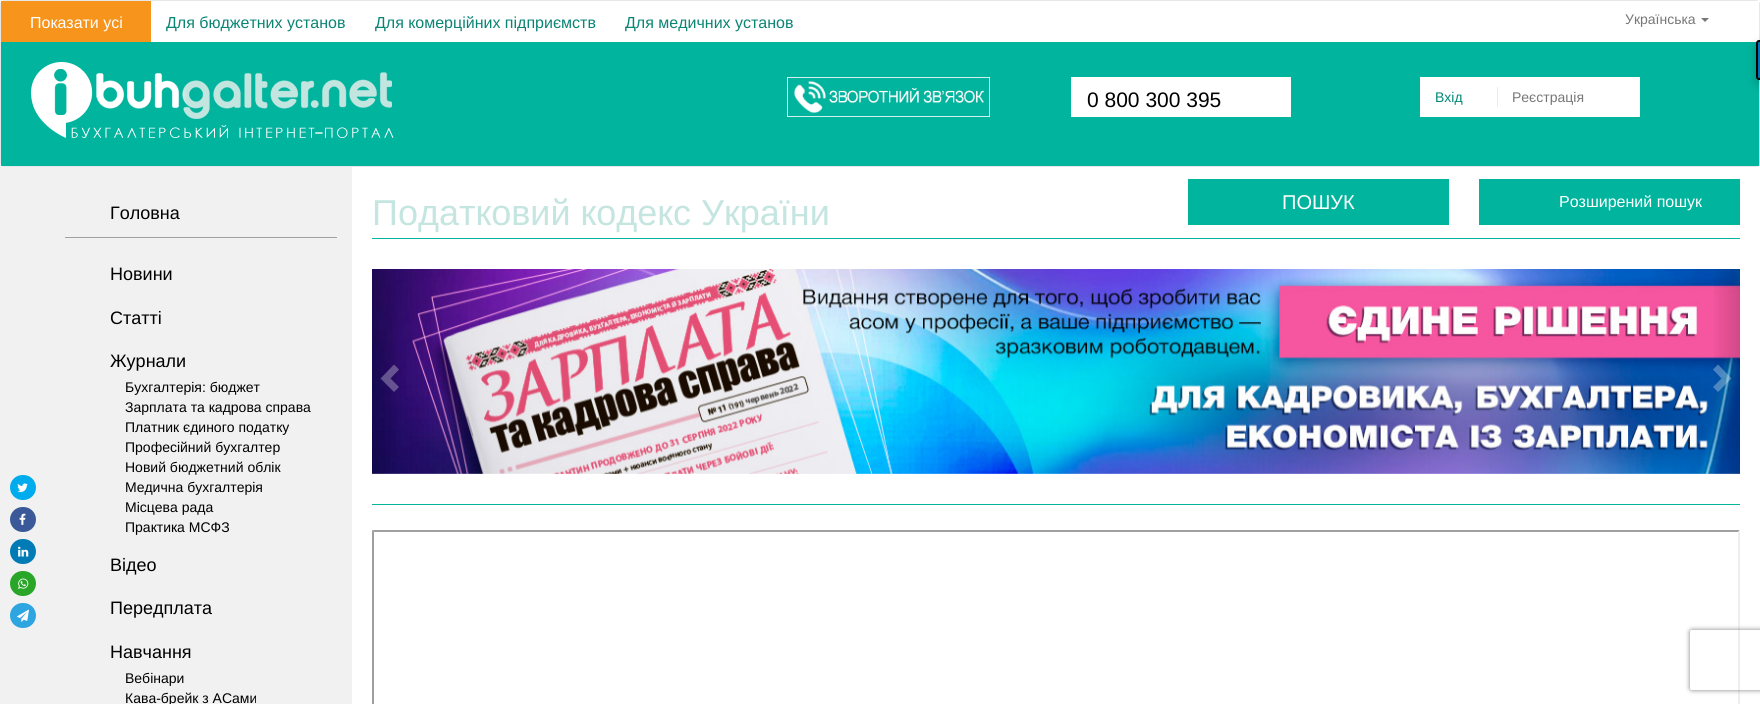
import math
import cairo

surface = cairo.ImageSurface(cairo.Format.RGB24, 1760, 704)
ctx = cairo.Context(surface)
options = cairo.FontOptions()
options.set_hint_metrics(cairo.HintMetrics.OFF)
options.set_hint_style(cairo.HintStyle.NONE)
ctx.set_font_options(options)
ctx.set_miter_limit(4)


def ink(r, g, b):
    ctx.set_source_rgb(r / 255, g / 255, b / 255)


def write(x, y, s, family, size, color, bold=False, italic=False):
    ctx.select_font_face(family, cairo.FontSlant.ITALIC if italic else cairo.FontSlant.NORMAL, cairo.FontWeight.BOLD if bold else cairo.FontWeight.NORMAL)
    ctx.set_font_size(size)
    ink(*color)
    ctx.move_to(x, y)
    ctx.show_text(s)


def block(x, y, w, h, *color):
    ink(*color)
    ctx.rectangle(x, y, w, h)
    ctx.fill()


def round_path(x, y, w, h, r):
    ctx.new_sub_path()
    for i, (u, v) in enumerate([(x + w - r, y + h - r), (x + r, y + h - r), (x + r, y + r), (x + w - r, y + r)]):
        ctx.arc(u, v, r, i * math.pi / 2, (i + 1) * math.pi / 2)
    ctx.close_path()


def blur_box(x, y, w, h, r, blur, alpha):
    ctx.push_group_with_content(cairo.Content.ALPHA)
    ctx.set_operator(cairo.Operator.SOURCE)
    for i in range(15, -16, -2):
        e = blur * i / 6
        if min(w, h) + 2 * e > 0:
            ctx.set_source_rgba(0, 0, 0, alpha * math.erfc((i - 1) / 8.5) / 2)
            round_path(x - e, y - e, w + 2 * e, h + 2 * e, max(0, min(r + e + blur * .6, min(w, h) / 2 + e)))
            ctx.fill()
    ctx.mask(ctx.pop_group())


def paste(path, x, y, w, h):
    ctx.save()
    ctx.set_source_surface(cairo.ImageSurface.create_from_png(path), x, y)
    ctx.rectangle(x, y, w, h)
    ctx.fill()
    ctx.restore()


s1 = dict(family="Liberation Sans", size=16, color=(255, 255, 255))
s2 = dict(family="Liberation Sans", size=16, color=(10, 132, 117))
s3 = dict(family="Liberation Sans", size=14, color=(119, 119, 119))
s4 = dict(family="Liberation Sans", size=21, color=(0, 0, 0))
s5 = dict(family="Liberation Sans", size=14, color=(0, 136, 119))
s6 = dict(family="Liberation Sans", size=18, color=(0, 0, 0))
s7 = dict(family="Liberation Sans", size=14, color=(0, 0, 0))
s8 = dict(family="Liberation Sans", size=36, color=(196, 229, 224))
s9 = dict(family="Liberation Sans", size=20, color=(255, 255, 255))

ink(255, 255, 255)
ctx.paint()
round_path(0.5, 0.5, 1759, 166, 3.5)
ink(231, 231, 231)
ctx.set_line_width(1)
ctx.stroke()
block(1757, 1, 2, 2, 255, 255, 255)
block(1, 1, 150, 41, 247, 148, 28)
write(30, 28, "Показати усi", **s1)
write(166, 28, "Для бюджетних установ", **s2)
write(375, 28, "Для комерційних підприємств", **s2)
write(625, 28, "Для медичних установ", **s2)
write(1625, 24, "Українська", **s3)
ctx.new_path()
ctx.move_to(1701, 18)
ctx.line_to(1709, 18)
ctx.line_to(1705, 22)
ctx.close_path()
ctx.fill()
block(1, 42, 1758, 124, 1, 180, 158)
paste("pic1.png", 31, 62, 363, 76)
paste("pic2.png", 787, 77, 203, 40)
block(1071, 77, 220, 40, 255, 255, 255)
write(1087, 107, "0 800 300 395", **s4)
block(1420, 77, 220, 40, 255, 255, 255)
write(1435, 102, "Вхід", **s5)
block(1497, 87, 1, 20, 235, 236, 237)
write(1512, 102, "Реєстрація", **s3)
block(0, 167, 352, 537, 241, 241, 241)
write(110, 219, "Головна", **s6)
block(65, 237, 272, 1, 161, 161, 161)
write(110, 280, "Новини", **s6)
write(110, 324, "Статті", **s6)
write(110, 367, "Журнали", **s6)
write(125, 392, "Бухгалтерія: бюджет", **s7)
write(125, 412, "Зарплата та кадрова справа", **s7)
write(125, 432, "Платник єдиного податку", **s7)
write(125, 452, "Професійний бухгалтер", **s7)
write(125, 472, "Новий бюджетний облік", **s7)
write(125, 492, "Медична бухгалтерія", **s7)
write(125, 512, "Місцева рада", **s7)
write(125, 532, "Практика МСФЗ", **s7)
write(110, 571, "Відео", **s6)
write(110, 614, "Передплата", **s6)
write(110, 658, "Навчання", **s6)
write(125, 683, "Вебінари", **s7)
write(125, 703, "Кава-брейк з АСами", **s7)
write(372, 225, "Податковий кодекс України", **s8)
block(1188, 179, 261, 46, 0, 180, 157)
write(1282, 209, "ПОШУК", **s9)
block(1479, 179, 261, 46, 0, 180, 157)
write(1559, 207, "Розширений пошук", **s1)
block(372, 238, 1368, 1, 1, 180, 158)
paste("pic3.png", 372, 269, 1368, 205)
gradient = cairo.LinearGradient(372, 372, 402, 372)
gradient.add_color_stop_rgba(0, 0, 0, 0, 0.15)
gradient.add_color_stop_rgba(1, 0, 0, 0, 0)
ctx.set_source(gradient)
ctx.rectangle(372, 269, 26, 205)
ctx.fill()
ctx.set_source_rgba(1, 1, 1, 0.3)
ctx.new_path()
ctx.move_to(399, 369.5)
ctx.line_to(390.5, 378.5)
ctx.line_to(399, 387)
ctx.line_to(394, 392)
ctx.line_to(380.5, 378.5)
ctx.line_to(394, 364.5)
ctx.close_path()
ctx.fill()
gradient = cairo.LinearGradient(1710, 372, 1740, 372)
gradient.add_color_stop_rgba(0, 0, 0, 0, 0)
gradient.add_color_stop_rgba(1, 0, 0, 0, 0.15)
ctx.set_source(gradient)
ctx.rectangle(1714, 269, 26, 205)
ctx.fill()
ctx.set_source_rgba(1, 1, 1, 0.3)
ctx.new_path()
ctx.move_to(1731.5, 378.5)
ctx.line_to(1718, 392)
ctx.line_to(1713, 387)
ctx.line_to(1721.5, 378.5)
ctx.line_to(1713, 369.5)
ctx.line_to(1718, 364.5)
ctx.close_path()
ctx.fill()
block(372, 504, 1368, 1, 1, 180, 158)
ink(159, 159, 159)
ctx.new_path()
ctx.move_to(372, 530)
ctx.line_to(1740, 530)
ctx.line_to(1738, 532)
ctx.line_to(374, 532)
ctx.close_path()
ctx.fill()
ctx.new_path()
ctx.move_to(372, 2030)
ctx.line_to(372, 530)
ctx.line_to(374, 532)
ctx.line_to(374, 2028)
ctx.close_path()
ctx.fill()
ink(238, 238, 238)
ctx.new_path()
ctx.move_to(1740, 530)
ctx.line_to(1740, 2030)
ctx.line_to(1738, 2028)
ctx.line_to(1738, 532)
ctx.close_path()
ctx.fill()
ink(0, 0, 0)
blur_box(1756, 44, 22, 40, 3, 5, 0.2)
ink(0, 115, 183)
ctx.new_path()
ctx.move_to(1759, 41)
ctx.line_to(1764, 41)
ctx.line_to(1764, 79)
ctx.line_to(1759, 79)
ctx.curve_to(1758, 79, 1757, 78, 1757, 77)
ctx.line_to(1757, 43)
ctx.curve_to(1757, 42, 1758, 41, 1759, 41)
ctx.close_path()
ctx.fill_preserve()
ink(0, 0, 0)
ctx.set_line_width(2)
ctx.stroke()
ink(0, 172, 237)
round_path(10, 475, 26, 25, 12.5)
ctx.fill()
paste("pic4.png", 17, 483, 11, 9)
ink(59, 89, 152)
round_path(10, 507, 26, 25, 12.5)
ctx.fill()
paste("pic5.png", 19, 513, 7, 12)
ink(0, 123, 182)
round_path(10, 539, 26, 25, 12.5)
ctx.fill()
paste("pic6.png", 18, 546, 11, 11)
ink(41, 166, 40)
round_path(10, 571, 26, 25, 12.5)
ctx.fill()
paste("pic7.png", 18, 578, 11, 11)
ink(44, 165, 224)
round_path(10, 603, 26, 25, 12.5)
ctx.fill()
paste("pic8.png", 17, 609, 12, 13)
ctx.save()
ctx.set_fill_rule(cairo.FillRule.EVEN_ODD)
ctx.new_path()
ctx.move_to(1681, 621)
ctx.line_to(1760, 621)
ctx.line_to(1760, 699)
ctx.line_to(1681, 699)
ctx.close_path()
ctx.move_to(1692, 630)
ctx.line_to(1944, 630)
ctx.curve_to(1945, 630, 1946, 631, 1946, 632)
ctx.line_to(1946, 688)
ctx.curve_to(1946, 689, 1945, 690, 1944, 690)
ctx.line_to(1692, 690)
ctx.curve_to(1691, 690, 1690, 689, 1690, 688)
ctx.line_to(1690, 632)
ctx.curve_to(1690, 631, 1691, 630, 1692, 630)
ctx.close_path()
ctx.clip()
ink(128, 128, 128)
blur_box(1690, 630, 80, 60, 2, 2.5, 1)
ctx.restore()
surface.write_to_png("screenshot.png")
